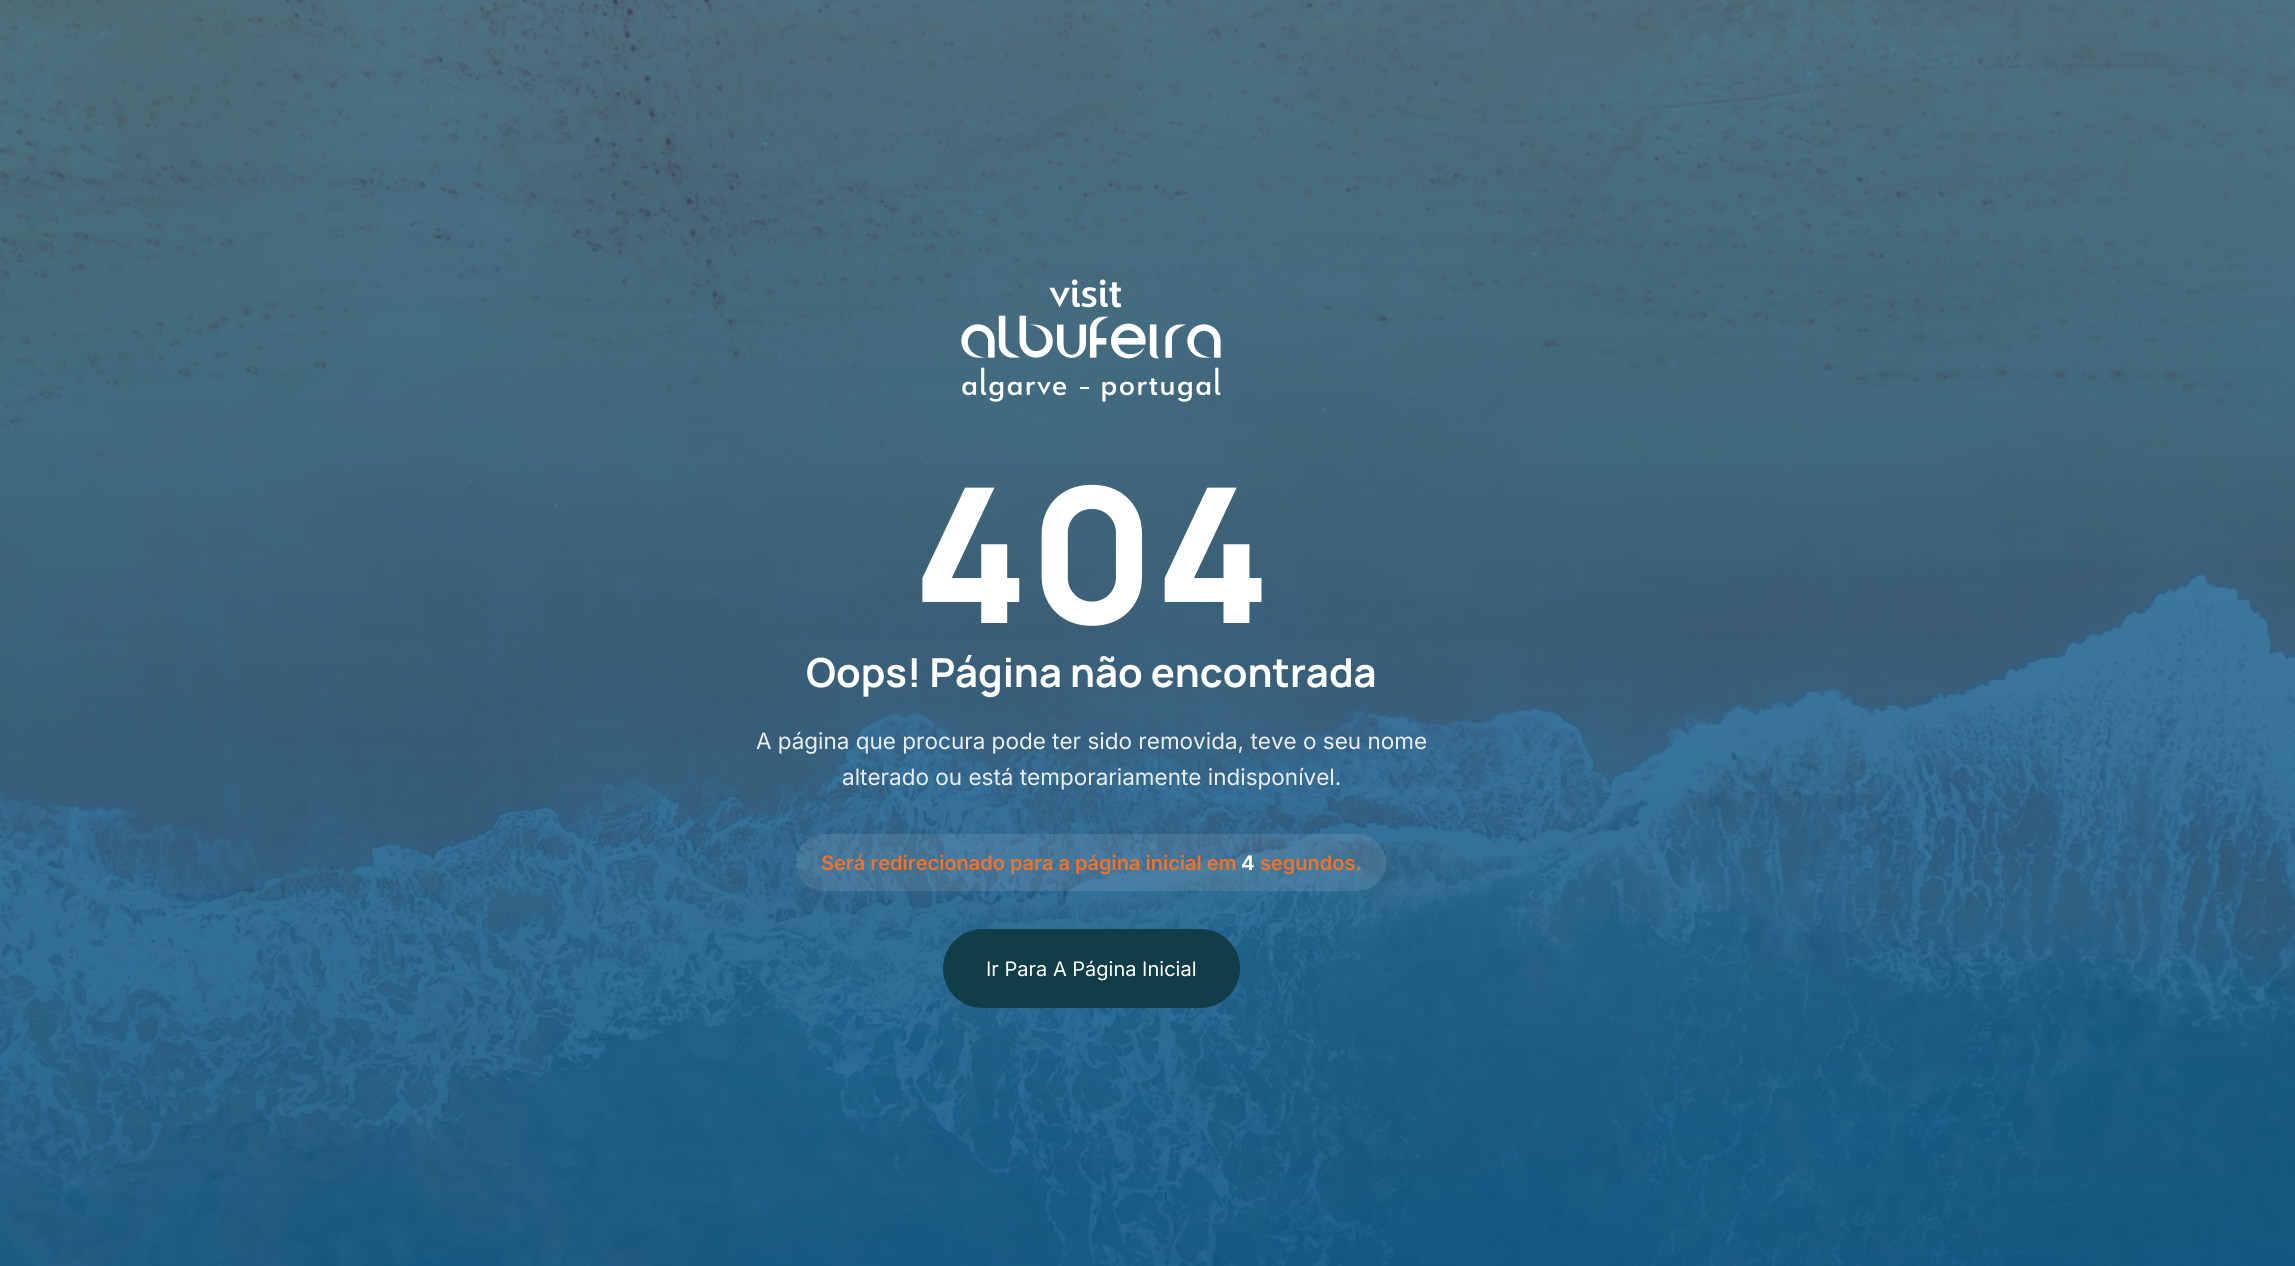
import math
import cairo

surface = cairo.ImageSurface(cairo.Format.RGB24, 2295, 1266)
ctx = cairo.Context(surface)
options = cairo.FontOptions()
options.set_hint_metrics(cairo.HintMetrics.OFF)
options.set_hint_style(cairo.HintStyle.NONE)
ctx.set_font_options(options)
ctx.set_miter_limit(4)


def ink(r, g, b):
    ctx.set_source_rgb(r / 255, g / 255, b / 255)


def write(x, y, s, family, size, color, bold=False, italic=False):
    ctx.select_font_face(family, cairo.FontSlant.ITALIC if italic else cairo.FontSlant.NORMAL, cairo.FontWeight.BOLD if bold else cairo.FontWeight.NORMAL)
    ctx.set_font_size(size)
    ink(*color)
    ctx.move_to(x, y)
    ctx.show_text(s)


def round_path(x, y, w, h, r):
    ctx.new_sub_path()
    for i, (u, v) in enumerate([(x + w - r, y + h - r), (x + r, y + h - r), (x + r, y + r), (x + w - r, y + r)]):
        ctx.arc(u, v, r, i * math.pi / 2, (i + 1) * math.pi / 2)
    ctx.close_path()


def paste(path, x, y, w, h):
    ctx.save()
    ctx.set_source_surface(cairo.ImageSurface.create_from_png(path), x, y)
    ctx.rectangle(x, y, w, h)
    ctx.fill()
    ctx.restore()


s1 = dict(family="Manrope ExtraBold", size=188, color=(255, 255, 255))
s2 = dict(family="Manrope", size=40, color=(255, 255, 255), bold=True)
s3 = dict(family="Inter", size=22.5, color=(235, 239, 243))
s4 = dict(family="Inter SemiBold", size=20, color=(243, 114, 40))
s5 = dict(family="Inter", size=20, color=(255, 255, 255), bold=True)
s6 = dict(family="Inter", size=20, color=(255, 255, 255))

ink(255, 255, 255)
ctx.paint()
paste("pic1.png", 0, 0, 2295, 1266)
paste("pic2.png", 961, 279, 260, 123)
write(913, 623, "404", **s1)
write(806, 687, "Oops! Página não encontrada", **s2)
write(756, 749, "A página que procura pode ter sido removida, teve o seu nome", **s3)
write(842, 785, "alterado ou está temporariamente indisponível.", **s3)
ctx.set_source_rgba(1, 1, 1, 0.1)
round_path(796, 834, 590, 57, 28.5)
ctx.fill()
write(821, 870, "Será redirecionado para a página inicial em", **s4)
write(1241, 870, "4", **s5)
write(1260, 870, "segundos.", **s4)
ink(17, 61, 72)
round_path(943, 929, 297, 79, 39.5)
ctx.fill()
write(986, 976, "Ir Para A Página Inicial", **s6)
surface.write_to_png("screenshot.png")
